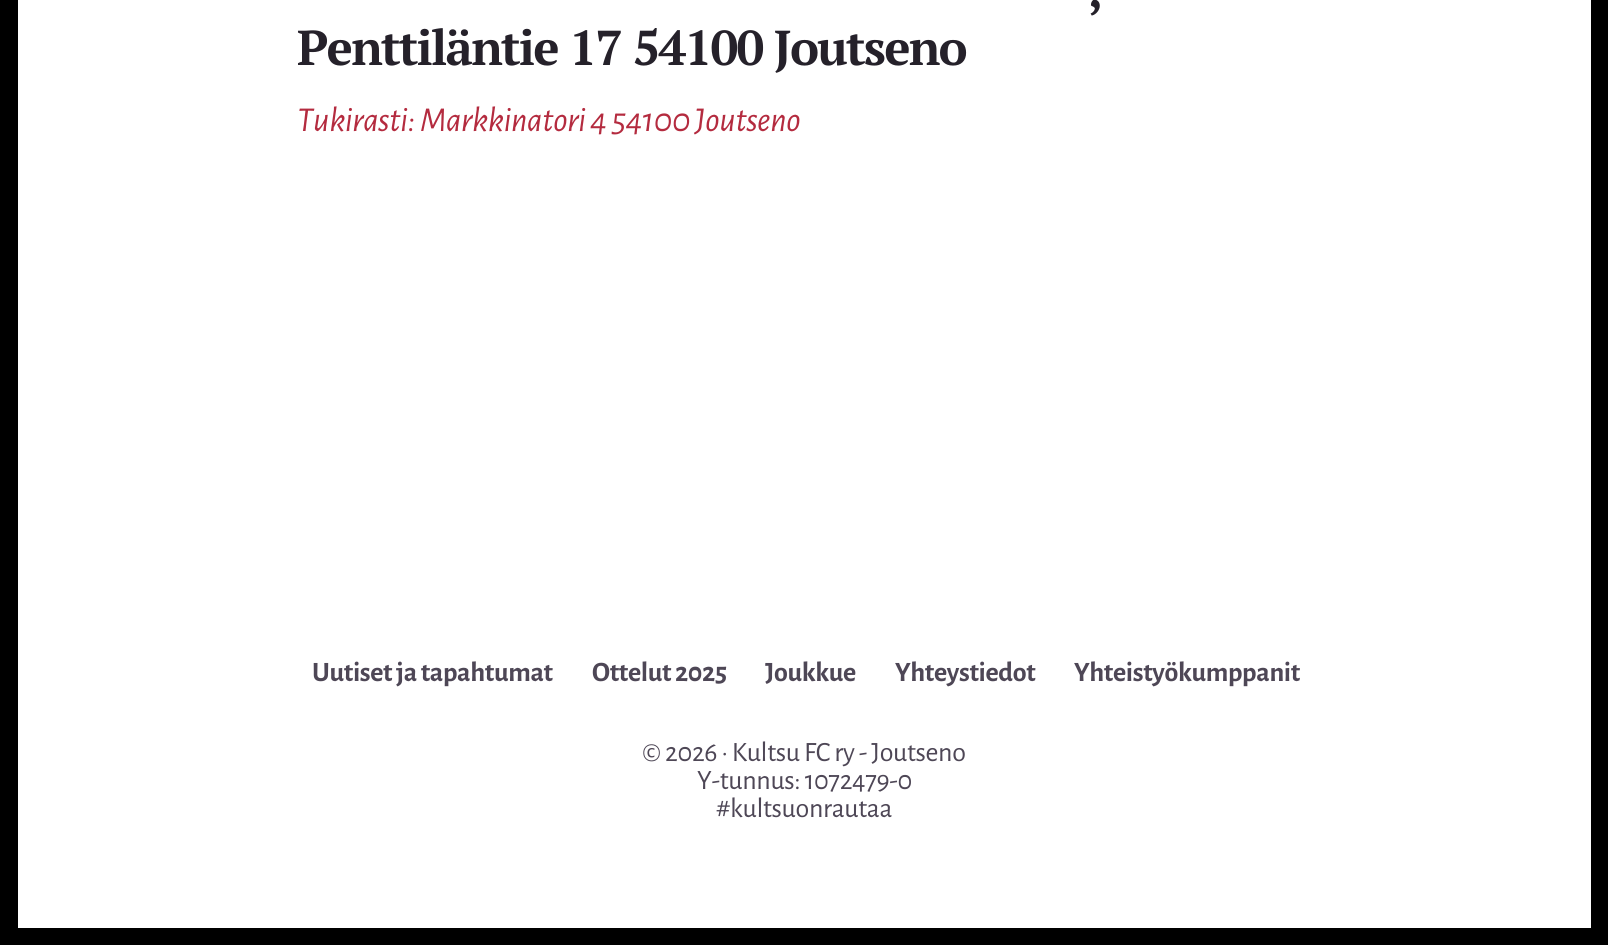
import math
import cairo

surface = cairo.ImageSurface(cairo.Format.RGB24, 1608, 945)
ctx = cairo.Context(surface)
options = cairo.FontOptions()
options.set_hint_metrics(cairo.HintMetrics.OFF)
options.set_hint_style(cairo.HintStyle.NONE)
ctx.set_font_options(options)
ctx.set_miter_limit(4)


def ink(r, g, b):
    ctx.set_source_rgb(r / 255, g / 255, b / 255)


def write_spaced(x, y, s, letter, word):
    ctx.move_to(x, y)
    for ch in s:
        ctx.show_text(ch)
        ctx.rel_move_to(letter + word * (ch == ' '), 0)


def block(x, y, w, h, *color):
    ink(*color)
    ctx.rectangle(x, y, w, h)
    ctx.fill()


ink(0, 0, 0)
ctx.paint()
block(18, 0, 1573, 928, 255, 255, 255)
ctx.select_font_face("PT Serif", cairo.FontSlant.NORMAL, cairo.FontWeight.BOLD)
ctx.set_font_size(49)
ink(37, 33, 42)
write_spaced(1088, 7, ",", -1.75, 0)
write_spaced(297, 65, "Penttiläntie 17 54100 Joutseno", -1.75, 0)
ctx.select_font_face("Alegreya Sans", cairo.FontSlant.ITALIC)
ctx.set_font_size(35)
ink(180, 43, 63)
write_spaced(297, 131, "Tukirasti: Markkinatori 4 54100 Joutseno", -0.35, 0)
ctx.select_font_face("Alegreya Sans", cairo.FontSlant.NORMAL, cairo.FontWeight.BOLD)
ctx.set_font_size(28)
ink(78, 71, 86)
write_spaced(312, 681, "Uutiset ja tapahtumat", -0.35, 0)
write_spaced(592, 681, "Ottelut 2025", -0.35, 0)
write_spaced(765, 681, "Joukkue", -0.35, 0)
write_spaced(895, 681, "Yhteystiedot", -0.35, 0)
write_spaced(1074, 681, "Yhteistyökumppanit", -0.35, 0)
ctx.select_font_face("Alegreya Sans")
write_spaced(642, 761, "© 2026 · Kultsu FC ry - Joutseno", -0.35, 0)
write_spaced(697, 789, "Y-tunnus: 1072479-0", -0.35, 0)
write_spaced(716, 817, "#kultsuonrautaa", -0.35, 0)
surface.write_to_png("screenshot.png")
